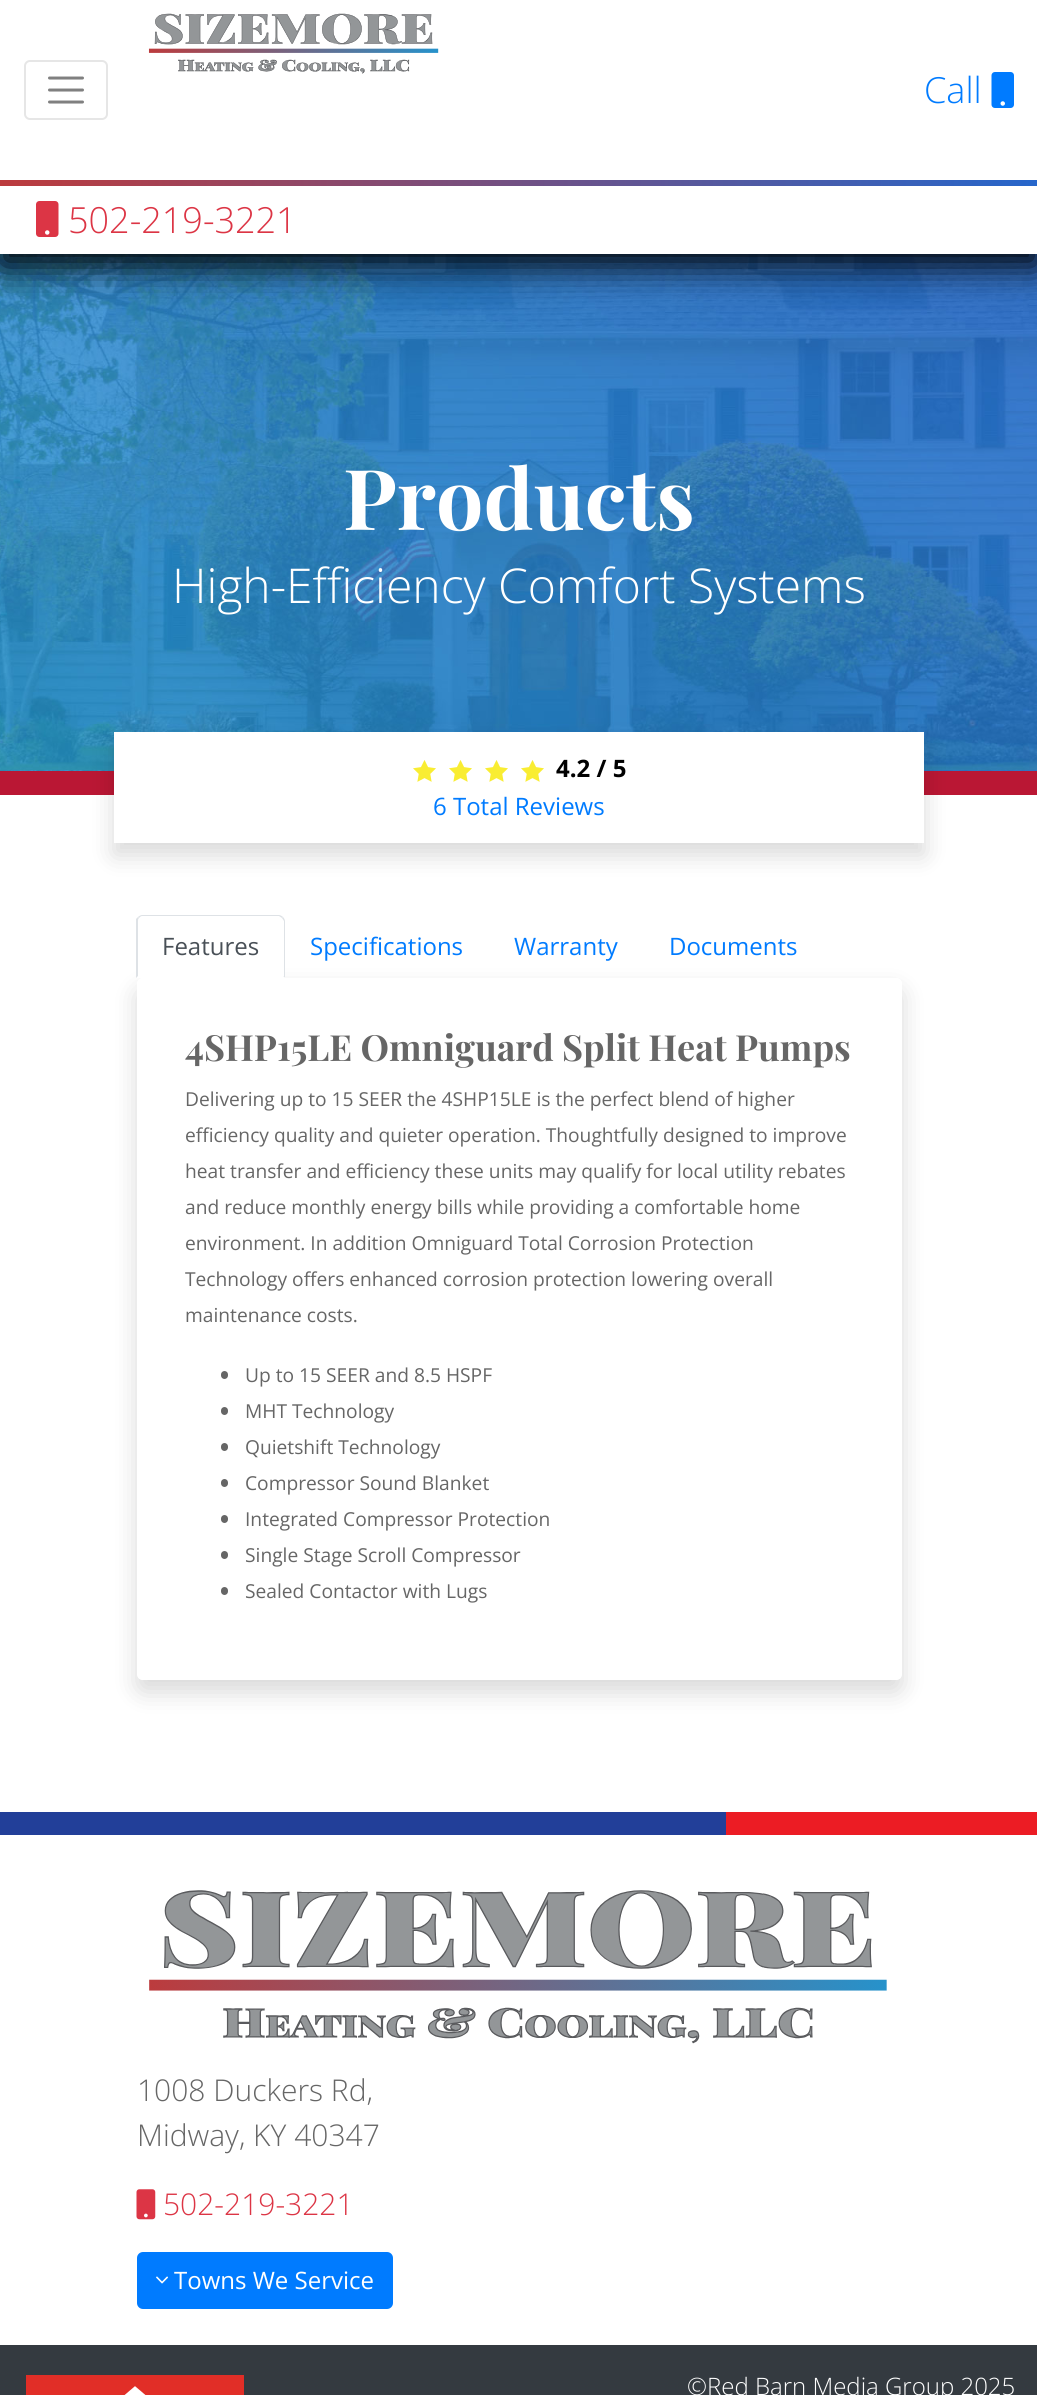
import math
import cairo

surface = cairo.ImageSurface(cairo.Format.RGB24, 1037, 2395)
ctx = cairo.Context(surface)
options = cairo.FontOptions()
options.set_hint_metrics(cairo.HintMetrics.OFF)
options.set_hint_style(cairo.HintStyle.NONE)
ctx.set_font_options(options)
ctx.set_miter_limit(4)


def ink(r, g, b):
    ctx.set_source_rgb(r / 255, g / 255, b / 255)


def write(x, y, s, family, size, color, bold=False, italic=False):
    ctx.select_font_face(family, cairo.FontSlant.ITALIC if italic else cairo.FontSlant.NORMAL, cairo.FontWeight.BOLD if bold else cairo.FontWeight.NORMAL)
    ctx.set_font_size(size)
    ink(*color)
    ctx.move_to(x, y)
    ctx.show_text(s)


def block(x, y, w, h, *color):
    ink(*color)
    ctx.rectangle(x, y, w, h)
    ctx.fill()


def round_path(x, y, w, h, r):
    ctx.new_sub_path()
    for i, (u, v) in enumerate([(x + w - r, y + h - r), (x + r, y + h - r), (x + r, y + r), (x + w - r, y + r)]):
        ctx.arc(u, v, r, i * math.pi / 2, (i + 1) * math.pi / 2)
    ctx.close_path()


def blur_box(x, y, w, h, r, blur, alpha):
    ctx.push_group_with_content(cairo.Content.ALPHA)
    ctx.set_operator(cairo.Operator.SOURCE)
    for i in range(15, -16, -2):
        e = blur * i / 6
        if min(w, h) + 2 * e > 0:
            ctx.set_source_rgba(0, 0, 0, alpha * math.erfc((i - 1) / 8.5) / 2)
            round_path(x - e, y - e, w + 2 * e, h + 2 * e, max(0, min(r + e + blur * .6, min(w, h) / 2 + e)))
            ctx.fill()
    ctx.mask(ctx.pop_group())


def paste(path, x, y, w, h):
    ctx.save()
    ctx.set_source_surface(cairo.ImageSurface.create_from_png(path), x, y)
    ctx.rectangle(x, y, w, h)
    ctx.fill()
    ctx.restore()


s1 = dict(family="Open Sans Light", size=36, color=(0, 123, 255))
s2 = dict(family="Open Sans Light", size=36, color=(220, 53, 69))
s3 = dict(family="Playfair Display", size=84, color=(255, 255, 255), bold=True)
s4 = dict(family="Open Sans Light", size=48, color=(255, 255, 255))
s5 = dict(family="Open Sans", size=24, color=(0, 0, 0), bold=True)
s6 = dict(family="Open Sans", size=24, color=(0, 123, 255))
s7 = dict(family="Open Sans", size=24, color=(73, 80, 87))
s8 = dict(family="Playfair Display", size=36, color=(102, 102, 102), bold=True)
s9 = dict(family="Open Sans", size=19.2, color=(102, 102, 102))
s10 = dict(family="Open Sans Light", size=30, color=(102, 102, 102))
s11 = dict(family="Open Sans Light", size=30, color=(220, 53, 69))
s12 = dict(family="Open Sans", size=24, color=(255, 255, 255))
s13 = dict(family="Open Sans Light", size=24, color=(255, 255, 255))

ink(255, 255, 255)
ctx.paint()
paste("pic4.png", 0, 254, 1037, 517)
ink(0, 0, 0)
blur_box(0, 12, 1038, 254, 0, 18, 1)
block(0, 0, 1037, 254, 255, 255, 255)
paste("pic1.png", 148, 13, 291, 61)
round_path(25, 61, 82, 58, 5)
ink(230, 230, 230)
ctx.stroke()
ctx.new_path()
ctx.move_to(49.5, 78)
ctx.line_to(82.5, 78)
ctx.move_to(49.5, 90)
ctx.line_to(82.5, 90)
ctx.move_to(49.5, 102)
ctx.line_to(82.5, 102)
ink(128, 128, 128)
ctx.set_line_width(3)
ctx.set_line_cap(cairo.LineCap.ROUND)
ctx.stroke()
write(924, 103, "Call", **s1)
paste("pic2.png", 991, 72, 23, 36)
gradient = cairo.LinearGradient(0, 183, 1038, 183)
gradient.add_color_stop_rgba(0, 0.737, 0.231, 0.239, 1)
gradient.add_color_stop_rgba(1, 0.149, 0.4, 0.796, 1)
ctx.set_source(gradient)
ctx.rectangle(0, 180, 1037, 6)
ctx.fill()
paste("pic3.png", 36, 201, 23, 36)
write(68, 233, "502-219-3221", **s2)
block(0, 771, 1037, 24, 186, 23, 52)
write(343, 530, "Products", **s3)
write(172, 603, "High-Efficiency Comfort Systems", **s4)
ink(0, 0, 0)
blur_box(114, 744, 810, 111, 0, 12, 0.15)
block(114, 732, 810, 111, 255, 255, 255)
paste("pic5.png", 413, 760, 23, 22)
paste("pic5.png", 449, 760, 23, 22)
paste("pic5.png", 485, 760, 23, 22)
paste("pic5.png", 521, 760, 23, 22)
write(556, 777, "4.2 / 5", **s5)
write(433, 815, "6 Total Reviews", **s6)
ctx.save()
ctx.set_fill_rule(cairo.FillRule.EVEN_ODD)
ctx.new_path()
ctx.move_to(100, 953)
ctx.line_to(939, 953)
ctx.line_to(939, 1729)
ctx.line_to(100, 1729)
ctx.close_path()
ctx.move_to(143, 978)
ctx.line_to(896, 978)
ctx.curve_to(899.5, 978, 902, 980.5, 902, 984)
ctx.line_to(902, 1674)
ctx.curve_to(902, 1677.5, 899.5, 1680, 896, 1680)
ctx.line_to(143, 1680)
ctx.curve_to(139.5, 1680, 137, 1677.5, 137, 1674)
ctx.line_to(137, 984)
ctx.curve_to(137, 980.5, 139.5, 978, 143, 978)
ctx.close_path()
ctx.clip()
ink(0, 0, 0)
blur_box(137, 990, 765, 702, 6, 12, 0.15)
ctx.restore()
ink(255, 255, 255)
ctx.new_path()
ctx.move_to(143, 915)
ctx.line_to(279, 915)
ctx.curve_to(282.5, 915, 285, 917.5, 285, 921)
ctx.line_to(285, 978)
ctx.line_to(137, 978)
ctx.line_to(137, 921)
ctx.curve_to(137, 917.5, 139.5, 915, 143, 915)
ctx.close_path()
ctx.fill()
ink(222, 226, 230)
ctx.new_path()
ctx.move_to(142, 915)
ctx.curve_to(141, 915, 139, 916, 138, 917)
ctx.line_to(139, 918)
ctx.curve_to(140, 917, 141, 916, 142, 916)
ctx.line_to(279, 916)
ctx.line_to(282, 918)
ctx.line_to(283, 917)
ctx.curve_to(282, 916, 280, 915, 279, 915)
ctx.close_path()
ctx.fill()
ctx.new_path()
ctx.move_to(285, 978)
ctx.line_to(285, 921)
ctx.curve_to(285, 920, 284, 918, 283, 917)
ctx.line_to(282, 918)
ctx.line_to(284, 921)
ctx.line_to(284, 976)
ctx.line_to(283, 976)
ctx.close_path()
ctx.fill()
ink(255, 255, 255)
ctx.new_path()
ctx.move_to(285, 978)
ctx.line_to(283, 976)
ctx.line_to(138, 976)
ctx.line_to(136, 978)
ctx.close_path()
ctx.fill()
ink(222, 226, 230)
ctx.new_path()
ctx.move_to(136, 978)
ctx.line_to(136, 919)
ctx.line_to(138, 917)
ctx.line_to(139, 918)
ctx.curve_to(138, 919, 138, 920, 138, 921)
ctx.line_to(138, 976)
ctx.close_path()
ctx.fill()
write(162, 955, "Features", **s7)
write(310, 955, "Specifications", **s6)
write(514, 955, "Warranty", **s6)
write(669, 955, "Documents", **s6)
write(185, 1061, "4SHP15LE Omniguard Split Heat Pumps", **s8)
write(185, 1106, "Delivering up to 15 SEER the 4SHP15LE is the perfect blend of higher", **s9)
write(185, 1142, "efficiency quality and quieter operation. Thoughtfully designed to improve", **s9)
write(185, 1178, "heat transfer and efficiency these units may qualify for local utility rebates", **s9)
write(185, 1214, "and reduce monthly energy bills while providing a comfortable home", **s9)
write(185, 1250, "environment. In addition Omniguard Total Corrosion Protection", **s9)
write(185, 1286, "Technology offers enhanced corrosion protection lowering overall", **s9)
write(185, 1322, "maintenance costs.", **s9)
round_path(221, 1371, 7, 8, 3.5)
ctx.fill()
write(245, 1382, "Up to 15 SEER and 8.5 HSPF", **s9)
round_path(221, 1407, 7, 8, 3.5)
ctx.fill()
write(245, 1418, "MHT Technology", **s9)
round_path(221, 1443, 7, 8, 3.5)
ctx.fill()
write(245, 1454, "Quietshift Technology", **s9)
round_path(221, 1479, 7, 8, 3.5)
ctx.fill()
write(245, 1490, "Compressor Sound Blanket", **s9)
round_path(221, 1515, 7, 8, 3.5)
ctx.fill()
write(245, 1526, "Integrated Compressor Protection", **s9)
round_path(221, 1551, 7, 8, 3.5)
ctx.fill()
write(245, 1562, "Single Stage Scroll Compressor", **s9)
round_path(221, 1587, 7, 8, 3.5)
ctx.fill()
write(245, 1598, "Sealed Contactor with Lugs", **s9)
block(0, 1812, 726, 23, 34, 63, 153)
block(726, 1812, 311, 23, 236, 28, 36)
paste("pic6.png", 149, 1890, 738, 154)
write(137, 2101, "1008 Duckers Rd,", **s10)
write(137, 2146, "Midway, KY 40347", **s10)
paste("pic7.png", 136, 2189, 20, 31)
write(163, 2215, "502-219-3221", **s11)
ink(0, 123, 255)
round_path(138, 2253, 254, 55, 5)
ctx.fill_preserve()
ctx.set_line_width(2)
ctx.set_line_cap(cairo.LineCap.BUTT)
ctx.stroke()
paste("pic8.png", 156, 2276, 12, 8)
write(174, 2289, "Towns We Service", **s12)
block(0, 2345, 1037, 50, 52, 58, 64)
paste("pic9.png", 26, 2375, 218, 20)
write(687, 2395, "©Red Barn Media Group 2025", **s13)
surface.write_to_png("screenshot.png")
